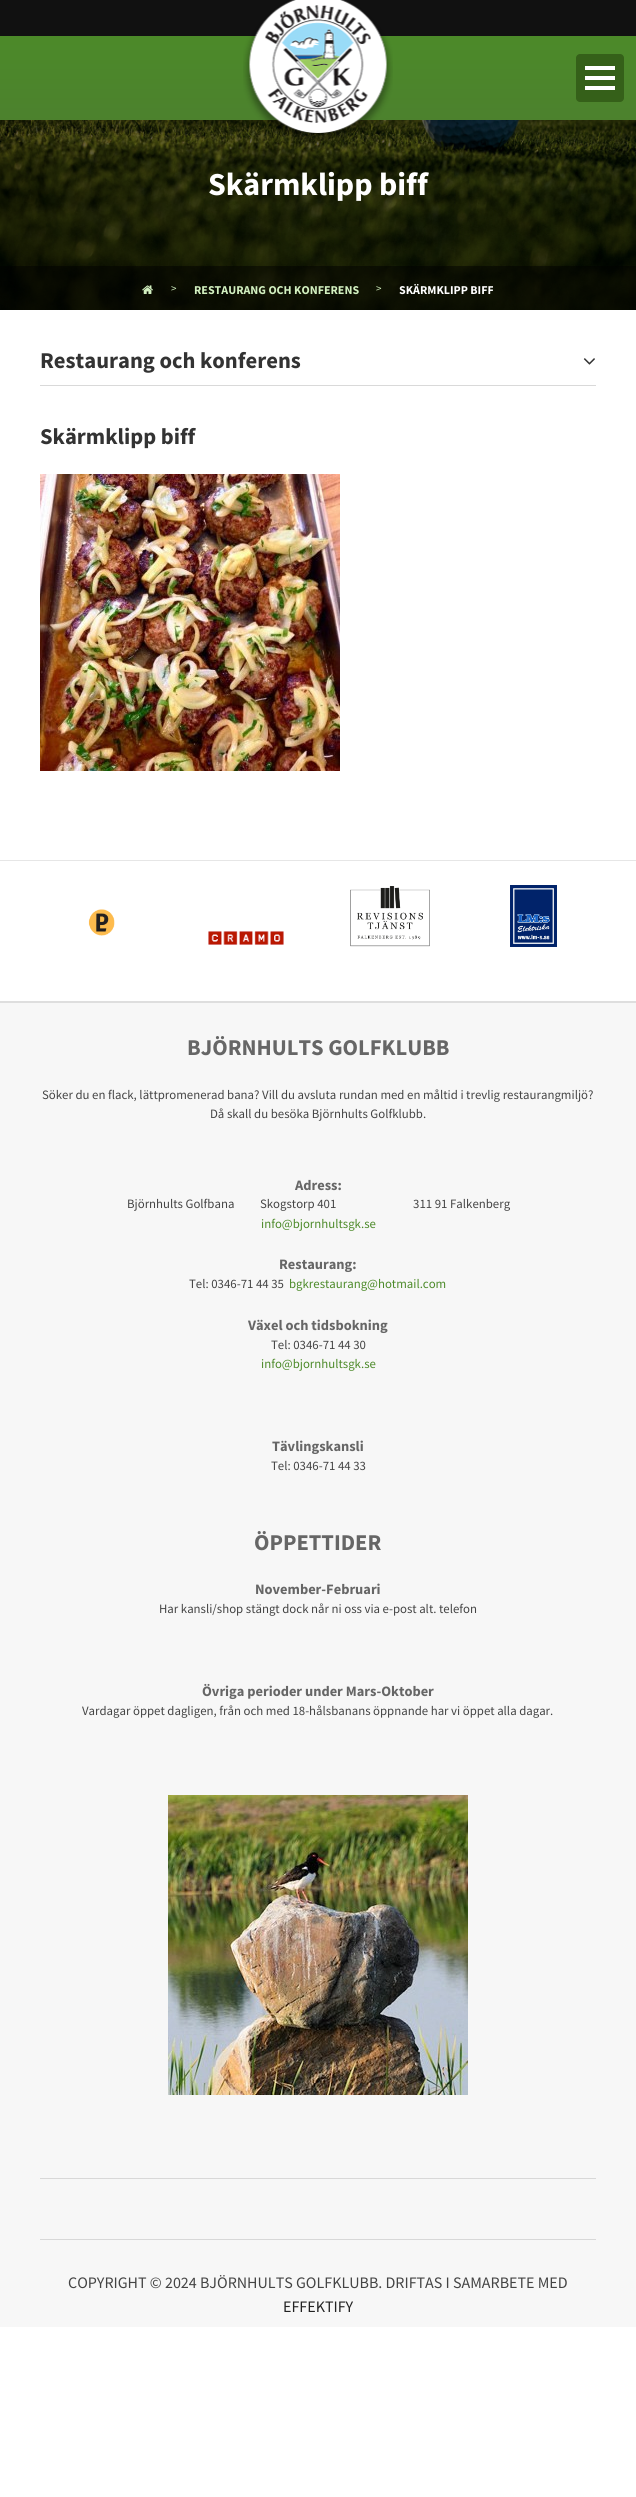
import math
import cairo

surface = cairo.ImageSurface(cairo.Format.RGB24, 636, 2497)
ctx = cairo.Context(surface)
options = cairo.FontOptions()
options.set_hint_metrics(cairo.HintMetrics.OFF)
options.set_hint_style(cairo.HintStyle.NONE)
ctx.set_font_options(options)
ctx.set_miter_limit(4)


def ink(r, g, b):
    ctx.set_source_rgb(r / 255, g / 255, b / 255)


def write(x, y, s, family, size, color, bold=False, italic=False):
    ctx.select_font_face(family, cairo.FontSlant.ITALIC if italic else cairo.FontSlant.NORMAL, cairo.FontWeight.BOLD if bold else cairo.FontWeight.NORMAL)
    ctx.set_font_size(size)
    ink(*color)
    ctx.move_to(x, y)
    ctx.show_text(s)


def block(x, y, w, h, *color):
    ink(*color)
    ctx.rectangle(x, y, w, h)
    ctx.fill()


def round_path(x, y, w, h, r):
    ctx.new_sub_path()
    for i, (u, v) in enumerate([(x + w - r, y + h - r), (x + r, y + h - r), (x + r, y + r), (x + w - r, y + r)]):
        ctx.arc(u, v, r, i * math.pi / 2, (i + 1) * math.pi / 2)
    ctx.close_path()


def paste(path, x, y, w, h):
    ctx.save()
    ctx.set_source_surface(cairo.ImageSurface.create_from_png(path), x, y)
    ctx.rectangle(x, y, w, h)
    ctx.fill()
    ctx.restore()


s1 = dict(family="Source Sans Pro", size=32, color=(255, 255, 255), bold=True)
s2 = dict(family="Source Sans Pro", size=11, color=(210, 240, 192))
s3 = dict(family="Source Sans Pro", size=12, color=(210, 240, 192), bold=True)
s4 = dict(family="Source Sans Pro", size=12, color=(255, 255, 255), bold=True)
s5 = dict(family="Source Sans Pro", size=22.6, color=(51, 51, 51), bold=True)
s6 = dict(family="Source Sans Pro", size=22.6, color=(102, 102, 102), bold=True)
s7 = dict(family="Source Sans Pro", size=12.8, color=(68, 68, 68))
s8 = dict(family="Source Sans Pro", size=14.4, color=(102, 102, 102), bold=True)
s9 = dict(family="Source Sans Pro", size=12.8, color=(76, 138, 41))
s10 = dict(family="Source Sans Pro", size=16, color=(68, 68, 68))
s11 = dict(family="Source Sans Pro", size=16, color=(34, 34, 34))

ink(255, 255, 255)
ctx.paint()
block(0, 0, 636, 36, 17, 17, 17)
gradient = cairo.LinearGradient(318, 36, 318, 191)
gradient.add_color_stop_rgba(0, 0.298, 0.541, 0.161, 1)
gradient.add_color_stop_rgba(1, 0.298, 0.478, 0.192, 1)
ctx.set_source(gradient)
ctx.rectangle(0, 36, 636, 84)
ctx.fill()
paste("pic2.png", 0, 120, 636, 190)
ctx.set_source_rgba(0, 0, 0, 0.5)
ctx.rectangle(0, 120, 636, 146)
ctx.fill()
paste("pic1.png", 243, 0, 150, 144)
ink(53, 96, 25)
round_path(576, 54, 48, 48, 4)
ctx.fill()
block(585, 76, 30, 4, 255, 255, 255)
block(585, 66, 30, 4, 255, 255, 255)
block(585, 86, 30, 4, 255, 255, 255)
write(208, 195, "Skärmklipp biff", **s1)
ctx.set_source_rgba(0, 0, 0, 0.75)
ctx.rectangle(0, 266, 636, 44)
ctx.fill()
paste("pic3.png", 142, 285, 11, 9)
write(171, 292, ">", **s2)
write(194, 294, "RESTAURANG OCH KONFERENS", **s3)
write(376, 292, ">", **s2)
write(399, 294, "SKÄRMKLIPP BIFF", **s4)
block(40, 385, 556, 1, 217, 217, 217)
write(40, 368, "Restaurang och konferens", **s5)
paste("pic4.png", 583, 358, 12, 7)
write(40, 444, "Skärmklipp biff", **s5)
paste("pic5.png", 40, 474, 300, 297)
block(0, 860, 636, 1, 230, 230, 230)
paste("pic6.png", 88, 909, 27, 27)
paste("pic7.png", 350, 886, 80, 61)
paste("pic8.png", 510, 885, 47, 62)
paste("pic9.png", 208, 931, 76, 14)
block(0, 1003, 636, 1324, 247, 247, 247)
block(0, 1001, 636, 2, 222, 222, 222)
write(187, 1055, "BJÖRNHULTS GOLFKLUBB", **s6)
write(42, 1099, "Söker du en flack, lättpromenerad bana? Vill du avsluta rundan med en måltid i trevlig restaurangmiljö?", **s7)
write(210, 1118, "Då skall du besöka Björnhults Golfklubb.", **s7)
write(295, 1190, "Adress:", **s8)
write(127, 1208, "Björnhults Golfbana          Skogstorp 401                              311 91 Falkenberg", **s7)
write(261, 1228, "info@bjornhultsgk.se", **s9)
write(279, 1269, "Restaurang:", **s8)
write(189, 1288, "Tel: 0346-71 44 35", **s7)
write(289, 1288, "bgkrestaurang@hotmail.com", **s9)
write(248, 1330, "Växel och tidsbokning", **s8)
write(271, 1349, "Tel: 0346-71 44 30", **s7)
write(261, 1368, "info@bjornhultsgk.se", **s9)
write(272, 1451, "Tävlingskansli", **s8)
write(271, 1470, "Tel: 0346-71 44 33", **s7)
write(254, 1550, "ÖPPETTIDER", **s6)
write(255, 1594, "November-Februari", **s8)
write(159, 1613, "Har kansli/shop stängt dock når ni oss via e-post alt. telefon", **s7)
write(202, 1696, "Övriga perioder under Mars-Oktober", **s8)
write(82, 1715, "Vardagar öppet dagligen, från och med 18-hålsbanans öppnande har vi öppet alla dagar.", **s7)
paste("pic10.png", 168, 1795, 300, 300)
block(40, 2178, 556, 1, 216, 216, 216)
block(40, 2239, 556, 1, 216, 216, 216)
write(68, 2288, "COPYRIGHT © 2024 BJÖRNHULTS GOLFKLUBB. DRIFTAS I SAMARBETE MED", **s10)
write(283, 2312, "EFFEKTIFY", **s11)
surface.write_to_png("screenshot.png")
